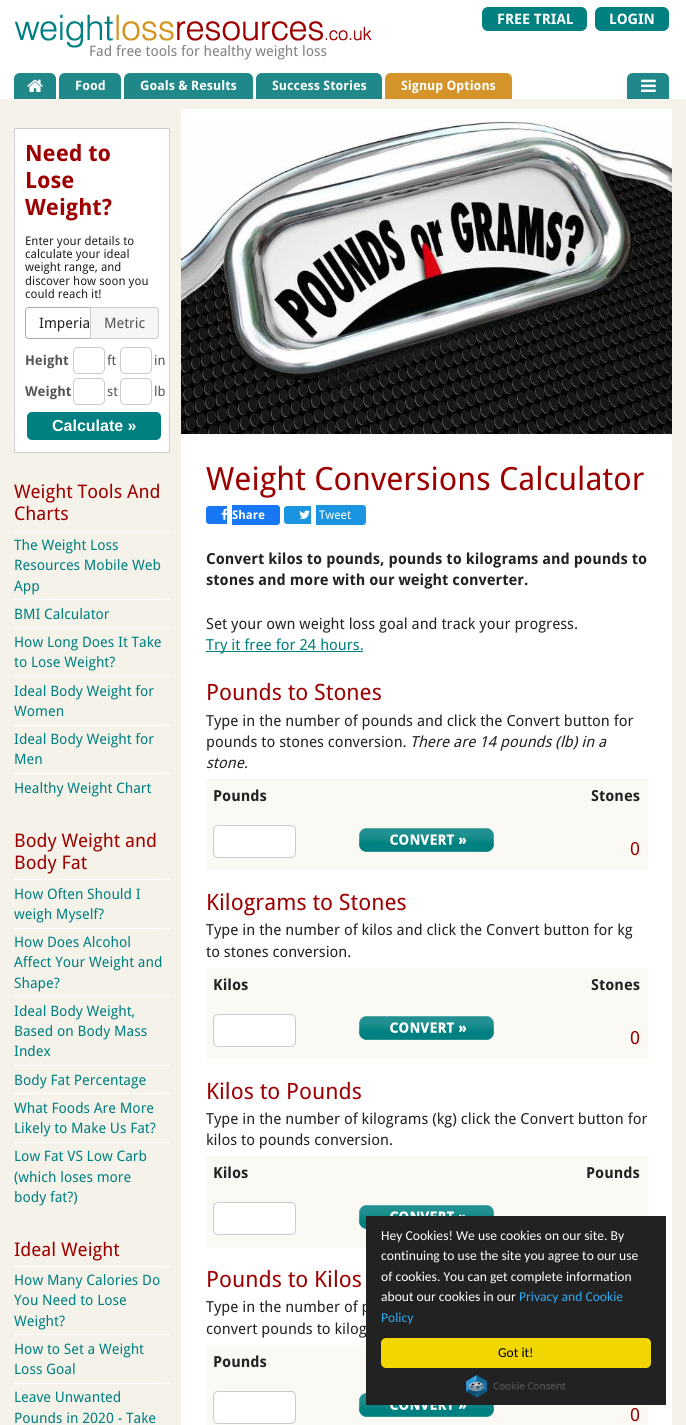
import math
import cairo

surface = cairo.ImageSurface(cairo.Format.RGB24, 686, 1425)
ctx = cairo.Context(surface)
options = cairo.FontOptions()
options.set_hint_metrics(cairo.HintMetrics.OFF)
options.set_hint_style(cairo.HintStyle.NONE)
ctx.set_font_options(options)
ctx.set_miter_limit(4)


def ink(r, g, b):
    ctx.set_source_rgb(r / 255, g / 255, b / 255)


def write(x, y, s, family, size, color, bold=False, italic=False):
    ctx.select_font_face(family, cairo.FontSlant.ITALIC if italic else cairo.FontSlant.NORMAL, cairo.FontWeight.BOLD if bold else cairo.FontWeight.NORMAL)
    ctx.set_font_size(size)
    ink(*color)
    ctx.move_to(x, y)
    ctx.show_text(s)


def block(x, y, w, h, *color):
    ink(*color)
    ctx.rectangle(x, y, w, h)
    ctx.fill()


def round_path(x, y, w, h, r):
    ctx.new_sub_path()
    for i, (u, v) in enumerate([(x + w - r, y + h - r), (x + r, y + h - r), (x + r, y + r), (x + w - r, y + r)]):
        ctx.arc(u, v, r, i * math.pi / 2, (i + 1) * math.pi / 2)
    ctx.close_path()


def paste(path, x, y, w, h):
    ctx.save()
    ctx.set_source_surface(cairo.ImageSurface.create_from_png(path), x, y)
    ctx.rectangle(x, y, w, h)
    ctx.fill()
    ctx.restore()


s1 = dict(family="Droid Sans", size=14.4, color=(255, 255, 255), bold=True)
s2 = dict(family="Droid Sans", size=14.4, color=(128, 128, 128))
s3 = dict(family="Droid Sans", size=13, color=(255, 255, 255), bold=True)
s4 = dict(family="Droid Sans", size=22.5, color=(157, 0, 0), bold=True)
s5 = dict(family="Droid Sans", size=12, color=(34, 34, 34))
s6 = dict(family="Droid Sans", size=14.4, color=(34, 34, 34))
s7 = dict(family="Droid Sans", size=14.4, color=(85, 85, 85))
s8 = dict(family="Droid Sans", size=13.6, color=(85, 85, 85), bold=True)
s9 = dict(family="Droid Sans", size=13.6, color=(85, 85, 85))
s10 = dict(family="Liberation Sans", size=16, color=(255, 255, 255), bold=True)
s11 = dict(family="Droid Sans", size=18.75, color=(157, 0, 0))
s12 = dict(family="Droid Sans", size=14.4, color=(0, 128, 128))
s13 = dict(family="Droid Sans", size=32, color=(157, 0, 0))
s14 = dict(family="Droid Sans", size=12, color=(255, 255, 255), bold=True)
s15 = dict(family="Droid Sans", size=12, color=(255, 255, 255))
s16 = dict(family="Droid Sans", size=15.2, color=(34, 34, 34), bold=True)
s17 = dict(family="Droid Sans", size=15.2, color=(34, 34, 34))
s18 = dict(family="Droid Sans", size=15.2, color=(0, 128, 128))
s19 = dict(family="Droid Sans", size=22.5, color=(157, 0, 0))
s20 = dict(family="Droid Sans", size=15.2, color=(34, 34, 34), italic=True)
s21 = dict(family="Droid Sans", size=18, color=(157, 0, 0))
s22 = dict(family="Carlito", size=13.6, color=(255, 255, 255))
s23 = dict(family="Carlito", size=13.6, color=(49, 168, 240))
s24 = dict(family="Carlito", size=13.6, color=(0, 0, 0))

ink(255, 255, 255)
ctx.paint()
ink(0, 128, 128)
round_path(482, 7, 105, 24, 6)
ctx.fill()
write(497, 24, "FREE TRIAL", **s1)
ink(0, 128, 128)
round_path(595, 7, 74, 24, 6)
ctx.fill()
write(609, 24, "LOGIN", **s1)
paste("pic1.png", 15, 14, 357, 34)
write(89, 56, "Fad free tools for healthy weight loss", **s2)
ink(33, 136, 138)
ctx.new_path()
ctx.move_to(20, 73)
ctx.line_to(50, 73)
ctx.curve_to(53.5, 73, 56, 75.5, 56, 79)
ctx.line_to(56, 99)
ctx.line_to(14, 99)
ctx.line_to(14, 79)
ctx.curve_to(14, 75.5, 16.5, 73, 20, 73)
ctx.close_path()
ctx.fill()
paste("pic2.png", 27, 79, 16, 13)
ctx.new_path()
ctx.move_to(65, 73)
ctx.line_to(115, 73)
ctx.curve_to(118.5, 73, 121, 75.5, 121, 79)
ctx.line_to(121, 99)
ctx.line_to(59, 99)
ctx.line_to(59, 79)
ctx.curve_to(59, 75.5, 61.5, 73, 65, 73)
ctx.close_path()
ctx.fill()
write(75, 90, "Food", **s3)
ink(33, 136, 138)
ctx.new_path()
ctx.move_to(130, 73)
ctx.line_to(247, 73)
ctx.curve_to(250.5, 73, 253, 75.5, 253, 79)
ctx.line_to(253, 99)
ctx.line_to(124, 99)
ctx.line_to(124, 79)
ctx.curve_to(124, 75.5, 126.5, 73, 130, 73)
ctx.close_path()
ctx.fill()
write(140, 90, "Goals & Results", **s3)
ink(33, 136, 138)
ctx.new_path()
ctx.move_to(262, 73)
ctx.line_to(376, 73)
ctx.curve_to(379.5, 73, 382, 75.5, 382, 79)
ctx.line_to(382, 99)
ctx.line_to(256, 99)
ctx.line_to(256, 79)
ctx.curve_to(256, 75.5, 258.5, 73, 262, 73)
ctx.close_path()
ctx.fill()
write(272, 90, "Success Stories", **s3)
ink(212, 148, 41)
ctx.new_path()
ctx.move_to(391, 73)
ctx.line_to(506, 73)
ctx.curve_to(509.5, 73, 512, 75.5, 512, 79)
ctx.line_to(512, 99)
ctx.line_to(385, 99)
ctx.line_to(385, 79)
ctx.curve_to(385, 75.5, 387.5, 73, 391, 73)
ctx.close_path()
ctx.fill()
write(401, 90, "Signup Options", **s3)
ink(33, 136, 138)
ctx.new_path()
ctx.move_to(633, 73)
ctx.line_to(663, 73)
ctx.curve_to(666.5, 73, 669, 75.5, 669, 79)
ctx.line_to(669, 99)
ctx.line_to(627, 99)
ctx.line_to(627, 79)
ctx.curve_to(627, 75.5, 629.5, 73, 633, 73)
ctx.close_path()
ctx.fill()
paste("pic3.png", 641, 79, 15, 13)
block(0, 99, 686, 1326, 245, 242, 233)
ink(255, 255, 255)
ctx.rectangle(14.5, 128.5, 155, 324)
ctx.fill_preserve()
ink(204, 204, 204)
ctx.set_line_width(1)
ctx.stroke()
write(25, 161, "Need to", **s4)
write(25, 188, "Lose", **s4)
write(25, 215, "Weight?", **s4)
write(25, 245, "Enter your details to", **s5)
write(25, 258, "calculate your ideal", **s5)
write(25, 271, "weight range, and", **s5)
write(25, 285, "discover how soon you", **s5)
write(25, 298, "could reach it!", **s5)
ctx.new_path()
ctx.move_to(29, 307.5)
ctx.line_to(93.5, 307.5)
ctx.line_to(93.5, 338.5)
ctx.line_to(29, 338.5)
ctx.curve_to(27, 338.5, 25.5, 337, 25.5, 335)
ctx.line_to(25.5, 311)
ctx.curve_to(25.5, 309, 27, 307.5, 29, 307.5)
ctx.close_path()
ink(170, 170, 170)
ctx.stroke()
write(39, 328, "Imperia", **s6)
ink(246, 246, 246)
ctx.new_path()
ctx.move_to(90.5, 307.5)
ctx.line_to(155, 307.5)
ctx.curve_to(157, 307.5, 158.5, 309, 158.5, 311)
ctx.line_to(158.5, 335)
ctx.curve_to(158.5, 337, 157, 338.5, 155, 338.5)
ctx.line_to(90.5, 338.5)
ctx.close_path()
ctx.fill_preserve()
ink(204, 204, 204)
ctx.stroke()
write(104, 328, "Metric", **s7)
write(25, 365, "Height", **s8)
round_path(73.5, 347.5, 31, 26, 4.5)
ink(204, 204, 204)
ctx.stroke()
write(107, 365, "ft", **s9)
round_path(120.5, 347.5, 31, 26, 4.5)
ink(204, 204, 204)
ctx.stroke()
write(154, 365, "in", **s9)
write(25, 396, "Weight", **s8)
round_path(73.5, 378.5, 31, 26, 4.5)
ink(204, 204, 204)
ctx.stroke()
write(107, 396, "st", **s9)
round_path(120.5, 378.5, 31, 26, 4.5)
ink(204, 204, 204)
ctx.stroke()
write(154, 396, "lb", **s9)
ink(0, 128, 128)
round_path(27, 412, 134, 28, 5)
ctx.fill()
write(52, 431, "Calculate »", **s10)
write(14, 498, "Weight Tools And", **s11)
write(14, 520, "Charts", **s11)
block(14, 531, 156, 1, 255, 255, 255)
write(14, 550, "The Weight Loss", **s12)
write(14, 570, "Resources Mobile Web", **s12)
write(14, 591, "App", **s12)
block(14, 599, 156, 1, 255, 255, 255)
write(14, 619, "BMI Calculator", **s12)
block(14, 628, 156, 1, 255, 255, 255)
write(14, 647, "How Long Does It Take", **s12)
write(14, 667, "to Lose Weight?", **s12)
block(14, 676, 156, 1, 255, 255, 255)
write(14, 696, "Ideal Body Weight for", **s12)
write(14, 716, "Women", **s12)
block(14, 725, 156, 1, 255, 255, 255)
write(14, 744, "Ideal Body Weight for", **s12)
write(14, 764, "Men", **s12)
block(14, 773, 156, 1, 255, 255, 255)
write(14, 793, "Healthy Weight Chart", **s12)
write(14, 847, "Body Weight and", **s11)
write(14, 869, "Body Fat", **s11)
block(14, 879, 156, 1, 255, 255, 255)
write(14, 899, "How Often Should I", **s12)
write(14, 919, "weigh Myself?", **s12)
block(14, 928, 156, 1, 255, 255, 255)
write(14, 947, "How Does Alcohol", **s12)
write(14, 967, "Affect Your Weight and", **s12)
write(14, 988, "Shape?", **s12)
block(14, 996, 156, 1, 255, 255, 255)
write(14, 1016, "Ideal Body Weight,", **s12)
write(14, 1036, "Based on Body Mass", **s12)
write(14, 1056, "Index", **s12)
block(14, 1065, 156, 1, 255, 255, 255)
write(14, 1085, "Body Fat Percentage", **s12)
block(14, 1093, 156, 1, 255, 255, 255)
write(14, 1113, "What Foods Are More", **s12)
write(14, 1133, "Likely to Make Us Fat?", **s12)
block(14, 1142, 156, 1, 255, 255, 255)
write(14, 1161, "Low Fat VS Low Carb", **s12)
write(14, 1182, "(which loses more", **s12)
write(14, 1202, "body fat?)", **s12)
write(14, 1256, "Ideal Weight", **s11)
block(14, 1266, 156, 1, 255, 255, 255)
write(14, 1285, "How Many Calories Do", **s12)
write(14, 1305, "You Need to Lose", **s12)
write(14, 1326, "Weight?", **s12)
block(14, 1334, 156, 1, 255, 255, 255)
write(14, 1354, "How to Set a Weight", **s12)
write(14, 1374, "Loss Goal", **s12)
block(14, 1383, 156, 1, 255, 255, 255)
write(14, 1402, "Leave Unwanted", **s12)
write(14, 1423, "Pounds in 2020 - Take", **s12)
block(181, 109, 491, 1316, 255, 255, 255)
paste("pic4.png", 181, 120, 491, 314)
write(206, 490, "Weight Conversions Calculator", **s13)
ink(24, 119, 242)
ctx.new_path()
ctx.move_to(209, 506)
ctx.line_to(227, 506)
ctx.line_to(227, 524)
ctx.line_to(209, 524)
ctx.curve_to(207.5, 524, 206, 522.5, 206, 521)
ctx.line_to(206, 509)
ctx.curve_to(206, 507.5, 207.5, 506, 209, 506)
ctx.close_path()
ctx.fill()
ctx.new_path()
ctx.move_to(232, 505)
ctx.line_to(277, 505)
ctx.curve_to(278.5, 505, 280, 506.5, 280, 508)
ctx.line_to(280, 522)
ctx.curve_to(280, 523.5, 278.5, 525, 277, 525)
ctx.line_to(232, 525)
ctx.close_path()
ctx.fill()
paste("pic5.png", 221, 508, 6, 12)
write(232, 519, "Share", **s14)
ink(27, 149, 224)
ctx.new_path()
ctx.move_to(287, 506)
ctx.line_to(311, 506)
ctx.line_to(311, 524)
ctx.line_to(287, 524)
ctx.curve_to(285.5, 524, 284, 522.5, 284, 521)
ctx.line_to(284, 509)
ctx.curve_to(284, 507.5, 285.5, 506, 287, 506)
ctx.close_path()
ctx.fill()
ctx.new_path()
ctx.move_to(316, 505)
ctx.line_to(363, 505)
ctx.curve_to(364.5, 505, 366, 506.5, 366, 508)
ctx.line_to(366, 522)
ctx.curve_to(366, 523.5, 364.5, 525, 363, 525)
ctx.line_to(316, 525)
ctx.close_path()
ctx.fill()
paste("pic6.png", 299, 510, 11, 9)
write(319, 519, "Tweet", **s15)
write(206, 564, "Convert kilos to pounds, pounds to kilograms and pounds to", **s16)
write(206, 585, "stones and more with our weight converter.", **s16)
write(206, 629, "Set your own weight loss goal and track your progress.", **s17)
block(206, 651, 157, 1, 0, 128, 128)
write(206, 650, "Try it free for 24 hours.", **s18)
write(206, 700, "Pounds to Stones", **s19)
write(206, 726, "Type in the number of pounds and click the Convert button for", **s17)
write(206, 747, "pounds to stones conversion.", **s17)
write(410, 747, "There are 14 pounds (lb) in a", **s20)
write(206, 768, "stone.", **s20)
block(206, 779, 442, 91, 250, 249, 244)
write(213, 801, "Pounds", **s16)
write(591, 801, "Stones", **s16)
ink(255, 255, 255)
round_path(213.5, 825.5, 82, 32, 4.5)
ctx.fill_preserve()
ink(204, 204, 204)
ctx.stroke()
ink(255, 255, 255)
round_path(359, 828, 135, 24, 5)
ctx.fill()
paste("pic7.png", 359, 828, 135, 24)
write(630, 855, "0", **s21)
write(206, 910, "Kilograms to Stones", **s19)
write(206, 935, "Type in the number of kilos and click the Convert button for kg", **s17)
write(206, 957, "to stones conversion.", **s17)
block(206, 968, 442, 91, 250, 249, 244)
write(213, 990, "Kilos", **s16)
write(591, 990, "Stones", **s16)
ink(255, 255, 255)
round_path(213.5, 1014.5, 82, 32, 4.5)
ctx.fill_preserve()
ink(204, 204, 204)
ctx.stroke()
ink(255, 255, 255)
round_path(359, 1016, 135, 24, 5)
ctx.fill()
paste("pic7.png", 359, 1016, 135, 24)
write(630, 1044, "0", **s21)
write(206, 1099, "Kilos to Pounds", **s19)
write(206, 1124, "Type in the number of kilograms (kg) click the Convert button for", **s17)
write(206, 1145, "kilos to pounds conversion.", **s17)
block(206, 1156, 442, 92, 250, 249, 244)
write(213, 1178, "Kilos", **s16)
write(586, 1178, "Pounds", **s16)
ink(255, 255, 255)
round_path(213.5, 1202.5, 82, 32, 4.5)
ctx.fill_preserve()
ink(204, 204, 204)
ctx.stroke()
ink(255, 255, 255)
round_path(359, 1205, 135, 24, 5)
ctx.fill()
paste("pic7.png", 359, 1205, 135, 24)
write(206, 1287, "Pounds to Kilos", **s19)
write(206, 1312, "Type in the number of p", **s17)
write(206, 1334, "convert pounds to kilog", **s17)
block(206, 1345, 160, 33, 250, 249, 244)
write(213, 1367, "Pounds", **s16)
block(206, 1378, 442, 47, 250, 249, 244)
ink(255, 255, 255)
round_path(213.5, 1391.5, 82, 32, 4.5)
ctx.fill_preserve()
ink(204, 204, 204)
ctx.stroke()
ink(255, 255, 255)
round_path(359, 1393, 135, 24, 5)
ctx.fill()
paste("pic7.png", 359, 1393, 135, 24)
write(630, 1421, "0", **s21)
block(366, 1216, 300, 189, 34, 34, 34)
write(381, 1240, "Hey Cookies! We use cookies on our site. By", **s22)
write(381, 1260, "continuing to use the site you agree to our use", **s22)
write(381, 1281, "of cookies. You can get complete information", **s22)
write(381, 1301, "about our cookies in our", **s22)
write(519, 1301, "Privacy and Cookie", **s23)
write(381, 1322, "Policy", **s23)
ink(241, 214, 0)
round_path(381, 1338, 270, 30, 5)
ctx.fill()
write(498, 1357, "Got it!", **s24)
paste("pic8.png", 466, 1375, 100, 22)
surface.write_to_png("screenshot.png")
